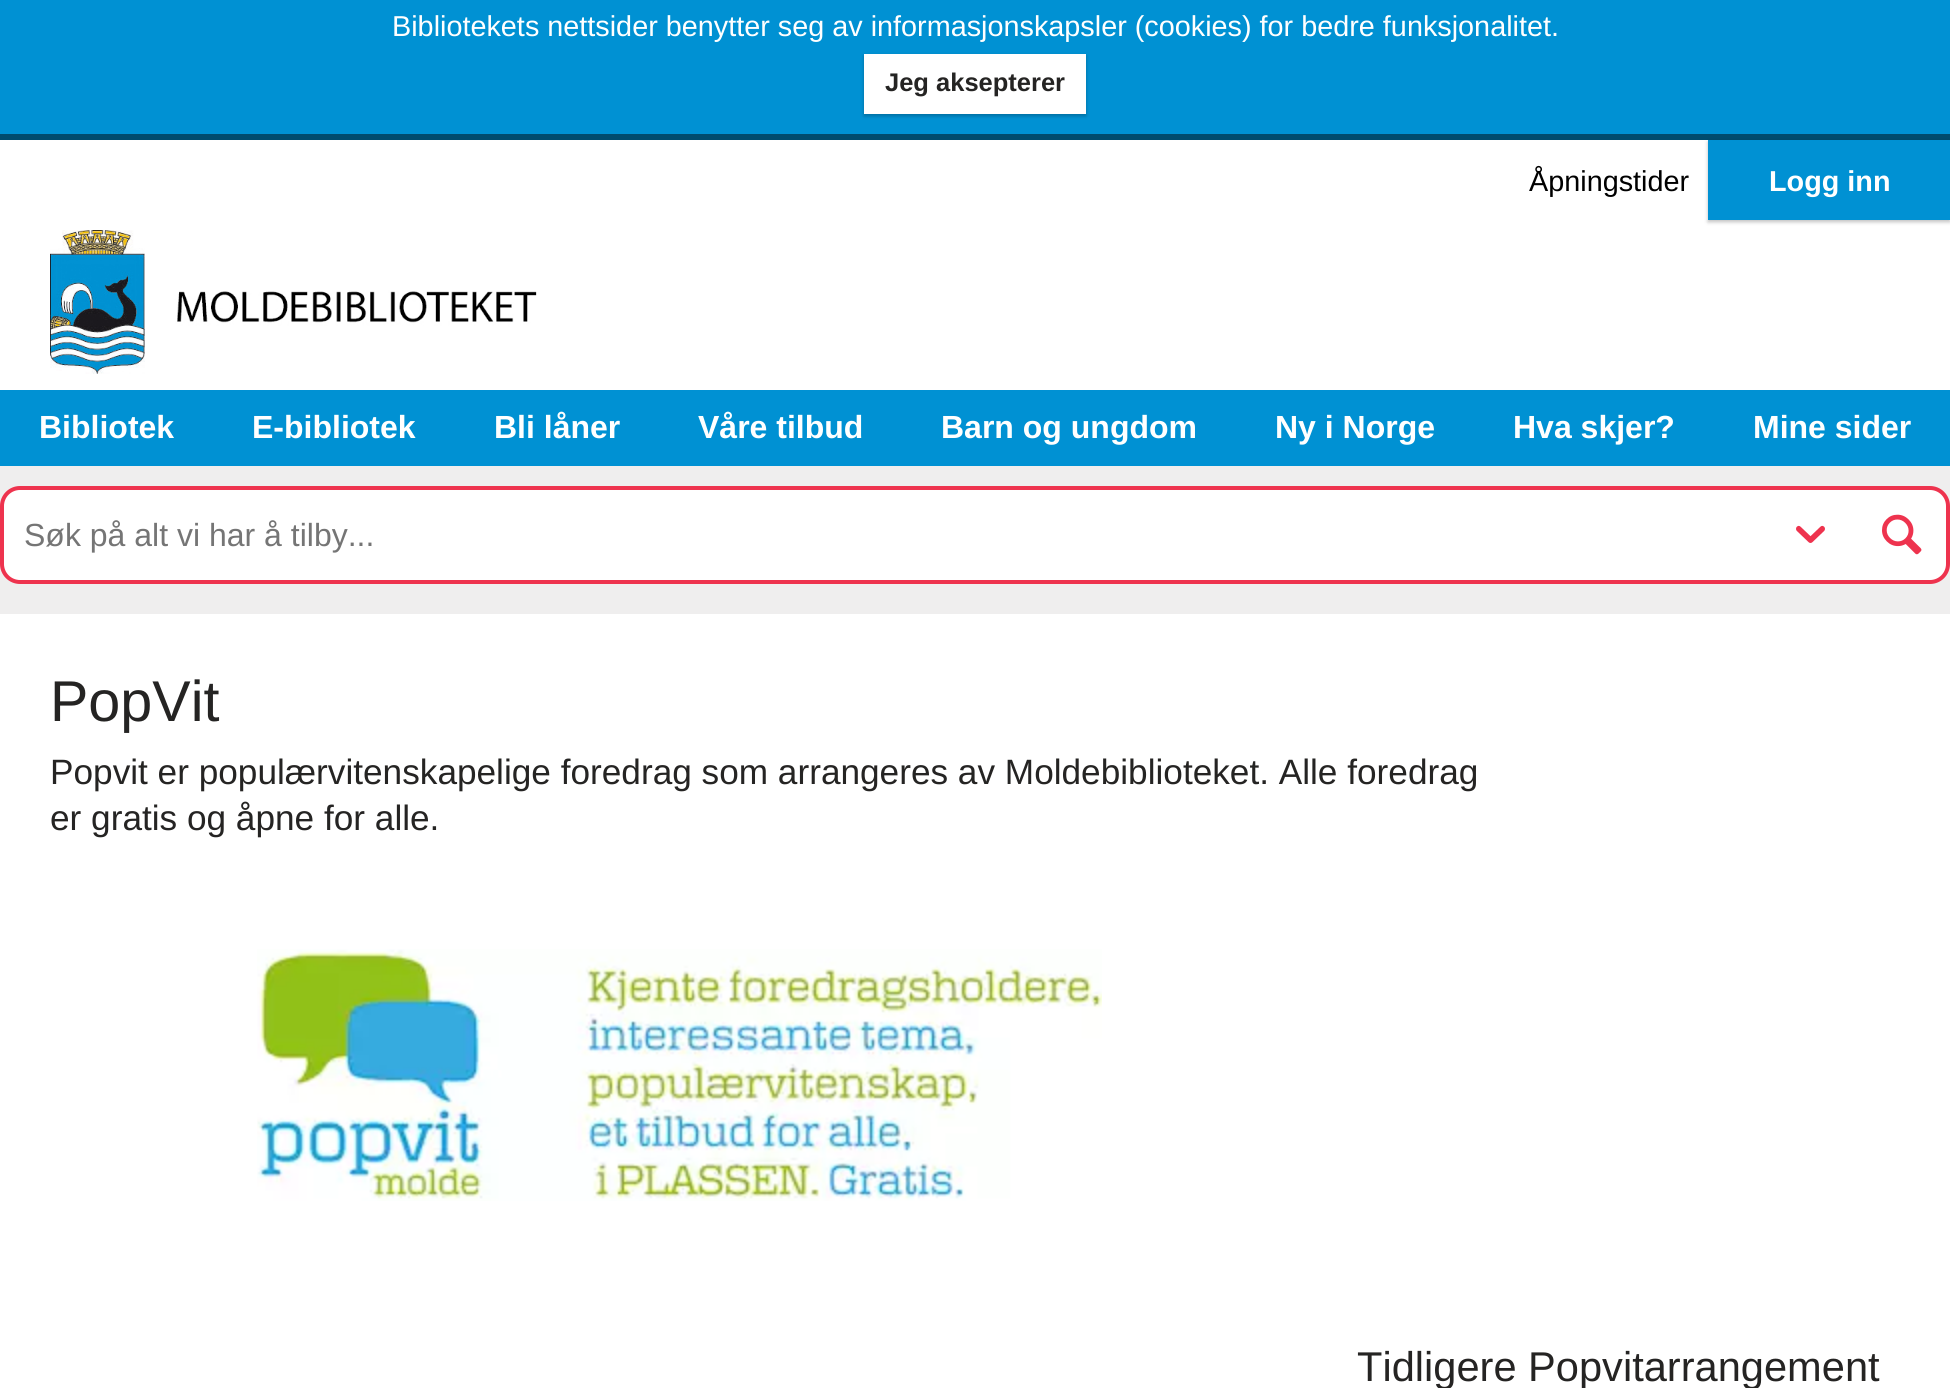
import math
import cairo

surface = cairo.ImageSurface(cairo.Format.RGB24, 1950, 1388)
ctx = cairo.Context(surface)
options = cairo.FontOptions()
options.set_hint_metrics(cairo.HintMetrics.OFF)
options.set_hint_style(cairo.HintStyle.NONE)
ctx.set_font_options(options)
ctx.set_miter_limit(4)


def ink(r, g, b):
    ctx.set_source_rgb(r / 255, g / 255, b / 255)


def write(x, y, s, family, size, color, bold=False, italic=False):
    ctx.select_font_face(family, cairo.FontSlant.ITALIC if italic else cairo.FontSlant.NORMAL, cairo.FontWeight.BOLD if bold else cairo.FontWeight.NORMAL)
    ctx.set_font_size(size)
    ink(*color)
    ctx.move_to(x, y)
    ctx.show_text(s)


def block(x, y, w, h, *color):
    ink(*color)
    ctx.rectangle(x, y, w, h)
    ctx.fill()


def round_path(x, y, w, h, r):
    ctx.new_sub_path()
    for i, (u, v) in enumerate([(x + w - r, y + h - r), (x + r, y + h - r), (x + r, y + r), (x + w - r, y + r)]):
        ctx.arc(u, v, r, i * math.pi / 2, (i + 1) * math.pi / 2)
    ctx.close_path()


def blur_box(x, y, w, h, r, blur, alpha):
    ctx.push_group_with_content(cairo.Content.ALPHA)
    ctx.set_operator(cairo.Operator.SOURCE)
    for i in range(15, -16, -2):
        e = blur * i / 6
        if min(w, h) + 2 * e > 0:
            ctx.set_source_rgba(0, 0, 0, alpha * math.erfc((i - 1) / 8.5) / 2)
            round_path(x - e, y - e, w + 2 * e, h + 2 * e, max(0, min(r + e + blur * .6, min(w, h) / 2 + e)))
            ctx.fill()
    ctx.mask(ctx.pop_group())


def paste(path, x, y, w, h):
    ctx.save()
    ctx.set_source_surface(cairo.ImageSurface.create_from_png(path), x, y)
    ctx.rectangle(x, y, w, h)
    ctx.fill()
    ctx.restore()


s1 = dict(family="Liberation Sans", size=28.8, color=(255, 255, 255))
s2 = dict(family="Liberation Sans", size=25.5, color=(37, 36, 35), bold=True)
s3 = dict(family="Liberation Sans", size=28.8, color=(0, 0, 0))
s4 = dict(family="Liberation Sans", size=28.8, color=(255, 255, 255), bold=True)
s5 = dict(family="Liberation Sans", size=32, color=(255, 255, 255), bold=True)
s6 = dict(family="Liberation Sans", size=32, color=(117, 117, 117))
s7 = dict(family="Liberation Sans", size=57.5, color=(37, 36, 35))
s8 = dict(family="Liberation Sans", size=35.2, color=(37, 36, 35))
s9 = dict(family="Liberation Sans", size=41.6, color=(37, 36, 35))

ink(239, 238, 238)
ctx.paint()
block(0, 0, 1950, 134, 0, 145, 211)
block(0, 134, 1950, 6, 0, 75, 109)
write(392, 36, "Bibliotekets nettsider benytter seg av informasjonskapsler (cookies) for bedre funksjonalitet.", **s1)
ink(0, 0, 0)
blur_box(864, 56, 222, 60, 0, 2, 0.25)
block(864, 54, 222, 60, 255, 255, 255)
write(885, 91, "Jeg aksepterer", **s2)
block(0, 140, 1950, 250, 255, 255, 255)
write(1529, 191, "Åpningstider", **s3)
ink(0, 0, 0)
blur_box(1708, 142, 242, 80, 0, 2, 0.25)
block(1708, 140, 242, 80, 0, 145, 211)
write(1769, 191, "Logg inn", **s4)
paste("pic1.png", 50, 230, 487, 144)
block(0, 390, 1950, 76, 0, 145, 211)
write(39, 438, "Bibliotek", **s5)
write(252, 438, "E-bibliotek", **s5)
write(494, 438, "Bli låner", **s5)
write(698, 438, "Våre tilbud", **s5)
write(941, 438, "Barn og ungdom", **s5)
write(1275, 438, "Ny i Norge", **s5)
write(1513, 438, "Hva skjer?", **s5)
write(1753, 438, "Mine sider", **s5)
round_path(2, 488, 1946, 94, 18)
ctx.fill_preserve()
ink(238, 51, 78)
ctx.set_line_width(4)
ctx.stroke()
ink(255, 255, 255)
round_path(4, 490, 1742, 90, 20)
ctx.fill()
write(24, 546, "Søk på alt vi har å tilby...", **s6)
paste("pic2.png", 1796, 525, 29, 18)
paste("pic3.png", 1882, 514, 40, 41)
block(0, 614, 1950, 774, 255, 255, 255)
write(50, 721, "PopVit", **s7)
write(50, 784, "Popvit er populærvitenskapelige foredrag som arrangeres av Moldebiblioteket. Alle foredrag", **s8)
write(50, 830, "er gratis og åpne for alle.", **s8)
paste("pic4.png", 257, 949, 845, 252)
write(1357, 1381, "Tidligere Popvitarrangement", **s9)
surface.write_to_png("screenshot.png")
